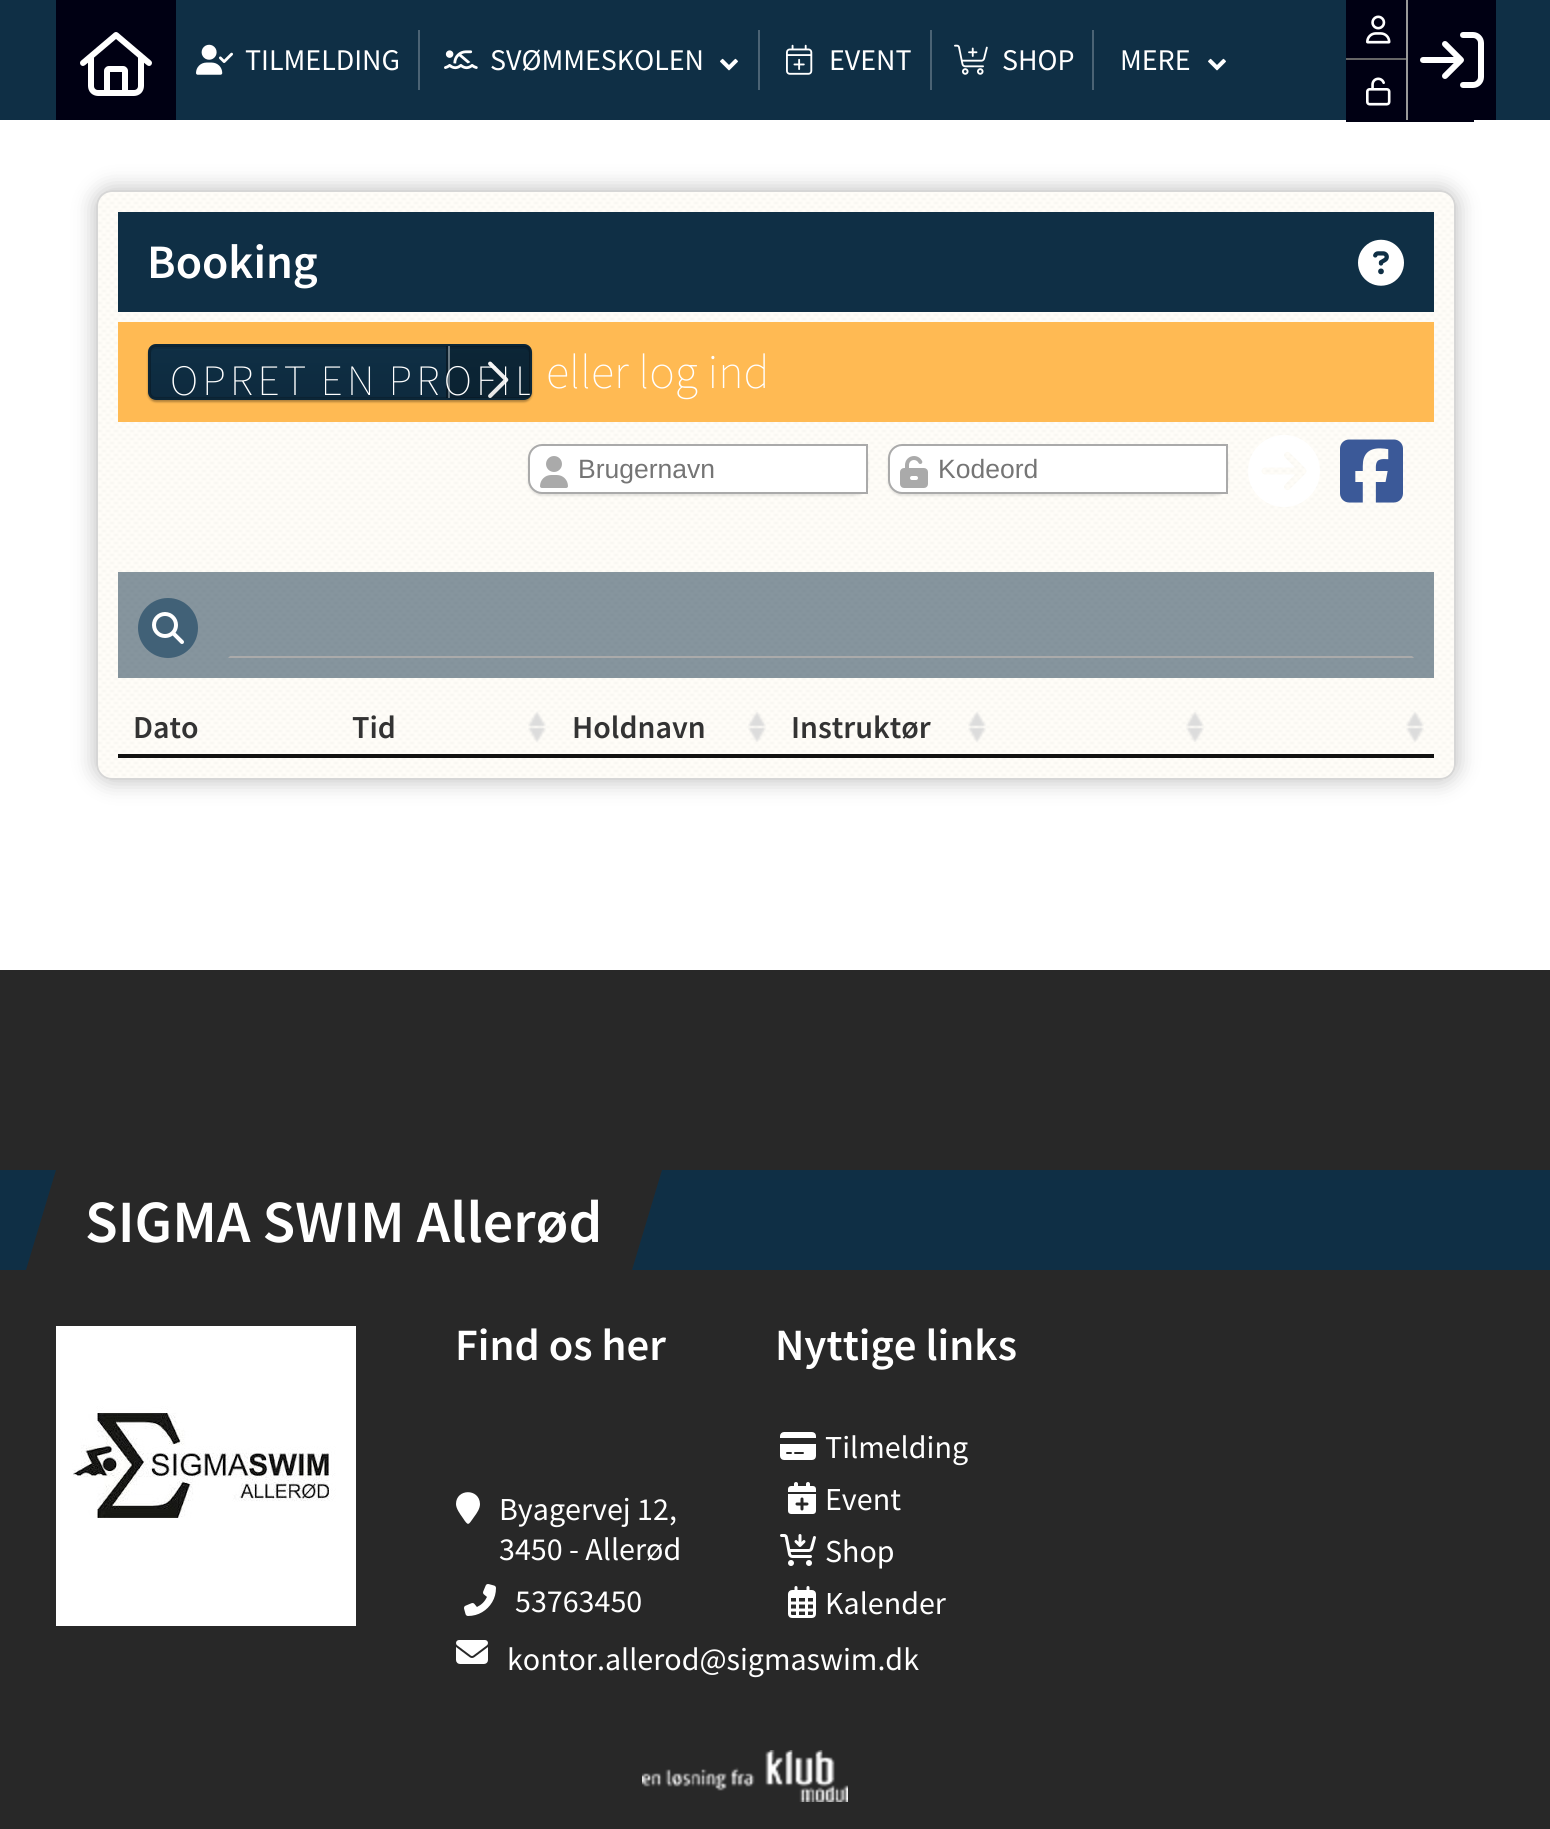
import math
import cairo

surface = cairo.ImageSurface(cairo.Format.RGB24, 1550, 1829)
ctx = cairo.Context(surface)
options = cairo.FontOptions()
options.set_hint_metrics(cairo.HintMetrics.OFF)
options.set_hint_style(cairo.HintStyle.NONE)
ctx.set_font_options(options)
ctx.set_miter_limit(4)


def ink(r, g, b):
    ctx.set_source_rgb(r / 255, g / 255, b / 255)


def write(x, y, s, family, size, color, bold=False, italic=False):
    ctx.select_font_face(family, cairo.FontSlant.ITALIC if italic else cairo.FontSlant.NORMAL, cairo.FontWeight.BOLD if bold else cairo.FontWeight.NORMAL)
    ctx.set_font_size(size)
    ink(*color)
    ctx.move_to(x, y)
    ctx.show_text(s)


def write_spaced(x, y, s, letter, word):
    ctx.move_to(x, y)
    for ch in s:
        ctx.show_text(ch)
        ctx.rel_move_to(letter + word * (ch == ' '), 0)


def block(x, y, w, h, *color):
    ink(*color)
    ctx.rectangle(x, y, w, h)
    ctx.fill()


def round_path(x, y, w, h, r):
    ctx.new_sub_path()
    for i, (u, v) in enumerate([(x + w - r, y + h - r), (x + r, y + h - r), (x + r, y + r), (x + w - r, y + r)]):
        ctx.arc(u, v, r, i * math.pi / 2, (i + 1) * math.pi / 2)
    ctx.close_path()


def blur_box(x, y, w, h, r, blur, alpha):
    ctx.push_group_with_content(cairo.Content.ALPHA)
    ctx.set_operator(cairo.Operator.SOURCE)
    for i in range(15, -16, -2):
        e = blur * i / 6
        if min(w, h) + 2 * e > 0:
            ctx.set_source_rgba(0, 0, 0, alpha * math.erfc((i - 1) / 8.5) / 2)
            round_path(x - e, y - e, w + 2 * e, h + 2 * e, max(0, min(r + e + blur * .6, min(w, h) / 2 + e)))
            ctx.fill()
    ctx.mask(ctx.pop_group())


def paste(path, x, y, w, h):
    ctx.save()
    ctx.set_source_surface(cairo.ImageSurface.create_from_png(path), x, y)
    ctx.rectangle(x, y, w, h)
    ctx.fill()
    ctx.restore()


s1 = dict(family="Source Sans Pro", size=30, color=(255, 255, 255))
s2 = dict(family="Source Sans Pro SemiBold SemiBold", size=48, color=(255, 255, 255))
s3 = dict(family="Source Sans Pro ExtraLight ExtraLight", size=48, color=(255, 255, 255))
s4 = dict(family="Liberation Sans", size=26.5, color=(117, 117, 117))
s5 = dict(family="Source Sans Pro SemiBold SemiBold", size=32, color=(51, 51, 51))
s6 = dict(family="Source Sans Pro SemiBold SemiBold", size=60, color=(255, 255, 255))
s7 = dict(family="Source Sans Pro SemiBold SemiBold", size=44.75, color=(255, 255, 255))
s8 = dict(family="Source Sans Pro", size=32, color=(255, 255, 255))

ink(255, 255, 255)
ctx.paint()
block(0, 0, 1550, 120, 15, 47, 69)
block(56, 0, 120, 120, 0, 0, 19)
paste("pic1.png", 80, 32, 72, 64)
paste("pic2.png", 196, 44, 37, 31)
write(245, 70, "TILMELDING", **s1)
block(418, 30, 2, 60, 75, 99, 116)
paste("pic3.png", 444, 50, 34, 20)
write(490, 70, "SVØMMESKOLEN", **s1)
paste("pic4.png", 720, 58, 18, 13)
block(758, 30, 2, 60, 75, 99, 116)
paste("pic5.png", 786, 44, 27, 31)
write(829, 70, "EVENT", **s1)
block(930, 30, 2, 60, 75, 99, 116)
paste("pic6.png", 954, 44, 34, 31)
write(1002, 70, "SHOP", **s1)
block(1092, 30, 2, 60, 75, 99, 116)
write(1120, 70, "MERE", **s1)
paste("pic4.png", 1208, 58, 18, 13)
block(1346, 0, 60, 62, 0, 0, 19)
block(1346, 58, 66, 2, 102, 102, 102)
paste("pic7.png", 1366, 15, 25, 29)
block(1346, 62, 128, 60, 0, 0, 19)
paste("pic8.png", 1366, 77, 25, 29)
block(1408, 0, 88, 120, 0, 0, 19)
block(1406, 0, 2, 120, 153, 153, 153)
paste("pic9.png", 1420, 32, 64, 56)
ink(0, 0, 0)
blur_box(92, 186, 1368, 598, 20, 10, 0.2)
paste("pic10.png", 96, 190, 1360, 590)
round_path(97, 191, 1358, 588, 15)
ink(214, 214, 214)
ctx.stroke()
block(118, 212, 1316, 100, 15, 47, 69)
write(147, 278, "Booking", **s2)
paste("pic11.png", 1358, 239, 46, 47)
block(118, 322, 1316, 100, 255, 186, 83)
ctx.save()
ctx.set_fill_rule(cairo.FillRule.EVEN_ODD)
ctx.new_path()
ctx.move_to(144, 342)
ctx.line_to(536, 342)
ctx.line_to(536, 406)
ctx.line_to(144, 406)
ctx.close_path()
ctx.move_to(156, 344)
ctx.line_to(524, 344)
ctx.curve_to(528.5, 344, 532, 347.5, 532, 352)
ctx.line_to(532, 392)
ctx.curve_to(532, 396.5, 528.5, 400, 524, 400)
ctx.line_to(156, 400)
ctx.curve_to(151.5, 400, 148, 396.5, 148, 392)
ctx.line_to(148, 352)
ctx.curve_to(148, 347.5, 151.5, 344, 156, 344)
ctx.close_path()
ctx.clip()
ink(0, 0, 0)
blur_box(148, 346, 384, 56, 8, 1, 0.3)
ctx.restore()
ink(15, 47, 69)
round_path(148, 344, 384, 56, 8)
ctx.fill()
ink(14, 42, 62)
ctx.new_path()
ctx.move_to(156, 349)
ctx.line_to(524, 349)
ctx.curve_to(527, 349, 529, 351, 529, 354)
ctx.line_to(529, 394)
ctx.line_to(528, 397)
ctx.curve_to(529, 396, 530, 394, 530, 393)
ctx.line_to(530, 351)
ctx.curve_to(530, 348, 528, 346, 525, 346)
ctx.line_to(155, 346)
ctx.curve_to(152, 346, 150, 348, 150, 351)
ctx.line_to(150, 393)
ctx.curve_to(150, 394, 151, 396, 152, 397)
ctx.line_to(151, 394)
ctx.line_to(151, 354)
ctx.curve_to(151, 351, 153, 349, 156, 349)
ctx.close_path()
ctx.fill()
round_path(149.5, 345.5, 381, 53, 6.5)
ctx.set_source_rgba(0, 0, 0, 0.2)
ctx.set_line_width(3)
ctx.stroke()
ctx.new_path()
ctx.move_to(446, 346)
ctx.line_to(525, 346)
ctx.curve_to(528, 346, 530, 348, 530, 351)
ctx.line_to(530, 393)
ctx.curve_to(530, 396, 528, 398, 525, 398)
ctx.line_to(446, 398)
ctx.close_path()
ctx.fill()
ctx.set_source_rgba(1, 1, 1, 0.4)
ctx.rectangle(448, 346, 2, 52)
ctx.fill()
ctx.set_source_rgba(0, 0, 0, 0.2)
ctx.rectangle(446, 346, 2, 52)
ctx.fill()
paste("pic12.png", 488, 361, 21, 37)
gradient = cairo.LinearGradient(340, 346, 340, 398)
gradient.add_color_stop_rgba(0, 0, 0, 0, 0)
gradient.add_color_stop_rgba(1, 0, 0, 0, 0.1)
ctx.set_source(gradient)
round_path(150, 346, 380, 52, 5)
ctx.fill()
ctx.save()
round_path(150, 346, 380, 52, 5)
ctx.clip()
ctx.select_font_face("Source Sans Pro ExtraLight ExtraLight")
ctx.set_font_size(43.25)
ink(255, 255, 255)
write_spaced(170, 395, "OPRET EN PROFIL", 4.3, -3)
ctx.restore()
write(546, 388, "eller log ind", **s3)
ink(0, 0, 0)
blur_box(528, 446, 340, 50, 14, 1, 0.1)
ink(255, 255, 255)
ctx.new_path()
ctx.move_to(542, 445)
ctx.line_to(867, 445)
ctx.line_to(867, 493)
ctx.line_to(542, 493)
ctx.curve_to(535, 493, 529, 487, 529, 480)
ctx.line_to(529, 458)
ctx.curve_to(529, 451, 535, 445, 542, 445)
ctx.close_path()
ctx.fill_preserve()
ink(170, 170, 170)
ctx.set_line_width(2)
ctx.stroke()
paste("pic13.png", 540, 456, 28, 32)
write(578, 478, "Brugernavn", **s4)
ink(0, 0, 0)
blur_box(888, 446, 340, 50, 14, 1, 0.1)
ink(255, 255, 255)
ctx.new_path()
ctx.move_to(902, 445)
ctx.line_to(1227, 445)
ctx.line_to(1227, 493)
ctx.line_to(902, 493)
ctx.curve_to(895, 493, 889, 487, 889, 480)
ctx.line_to(889, 458)
ctx.curve_to(889, 451, 895, 445, 902, 445)
ctx.close_path()
ctx.fill_preserve()
ink(170, 170, 170)
ctx.stroke()
paste("pic14.png", 900, 456, 28, 32)
write(938, 478, "Kodeord", **s4)
paste("pic15.png", 1248, 435, 72, 72)
paste("pic16.png", 1340, 439, 63, 64)
ctx.set_source_rgba(0.059, 0.184, 0.271, 0.5)
ctx.rectangle(118, 572, 1316, 106)
ctx.fill()
ink(65, 97, 119)
ctx.arc(168, 628, 30, 0, 2 * math.pi)
ctx.fill()
paste("pic17.png", 152, 612, 32, 32)
ink(170, 170, 170)
ctx.new_path()
ctx.move_to(1414, 658)
ctx.line_to(228, 658)
ctx.line_to(230, 656)
ctx.line_to(1412, 656)
ctx.close_path()
ctx.fill()
block(118, 756, 1316, 2, 17, 17, 17)
block(118, 754, 1316, 2, 17, 17, 17)
write(133, 738, "Dato", **s5)
paste("pic18.png", 528, 711, 18, 32)
write(352, 738, "Tid", **s5)
paste("pic19.png", 748, 712, 18, 30)
write(572, 738, "Holdnavn", **s5)
paste("pic18.png", 968, 711, 18, 32)
write(791, 738, "Instruktør", **s5)
paste("pic20.png", 1186, 712, 18, 30)
paste("pic21.png", 1406, 711, 18, 32)
block(0, 970, 1550, 859, 40, 40, 40)
block(0, 1170, 1550, 100, 15, 47, 69)
block(56, 1170, 576, 100, 40, 40, 40)
ctx.new_path()
ctx.move_to(56, 1170)
ctx.line_to(56, 1270)
ctx.line_to(26, 1270)
ctx.close_path()
ctx.fill()
write(85, 1242, "SIGMA SWIM Allerød", **s6)
ink(40, 40, 40)
ctx.new_path()
ctx.move_to(632, 1270)
ctx.line_to(632, 1170)
ctx.line_to(662, 1170)
ctx.close_path()
ctx.fill()
paste("pic22.png", 56, 1326, 300, 300)
write(455, 1360, "Find os her", **s7)
ctx.new_path()
ctx.move_to(480, 1504)
ctx.curve_to(480, 1508.5, 477, 1513, 474, 1517)
ctx.curve_to(468, 1525.5, 468.5, 1526.5, 462.5, 1517.5)
ctx.curve_to(460, 1514, 456, 1508.5, 456, 1504)
ctx.curve_to(456, 1488.5, 479.5, 1488, 480, 1504)
ctx.close_path()
ctx.fill()
write(499, 1520, "Byagervej 12,", **s8)
write(499, 1560, "3450 - Allerød", **s8)
paste("pic23.png", 464, 1584, 32, 32)
write(515, 1612, "53763450", **s8)
paste("pic24.png", 456, 1640, 32, 24)
write(507, 1670, "kontor.allerod@sigmaswim.dk", **s8)
write(775, 1360, "Nyttige links", **s7)
paste("pic25.png", 780, 1432, 36, 28)
write(825, 1458, "Tilmelding", **s8)
paste("pic26.png", 788, 1482, 28, 32)
write(825, 1510, "Event", **s8)
paste("pic27.png", 780, 1534, 36, 32)
write(825, 1562, "Shop", **s8)
paste("pic28.png", 788, 1586, 28, 32)
write(825, 1614, "Kalender", **s8)
paste("pic29.png", 642, 1750, 206, 52)
surface.write_to_png("screenshot.png")
